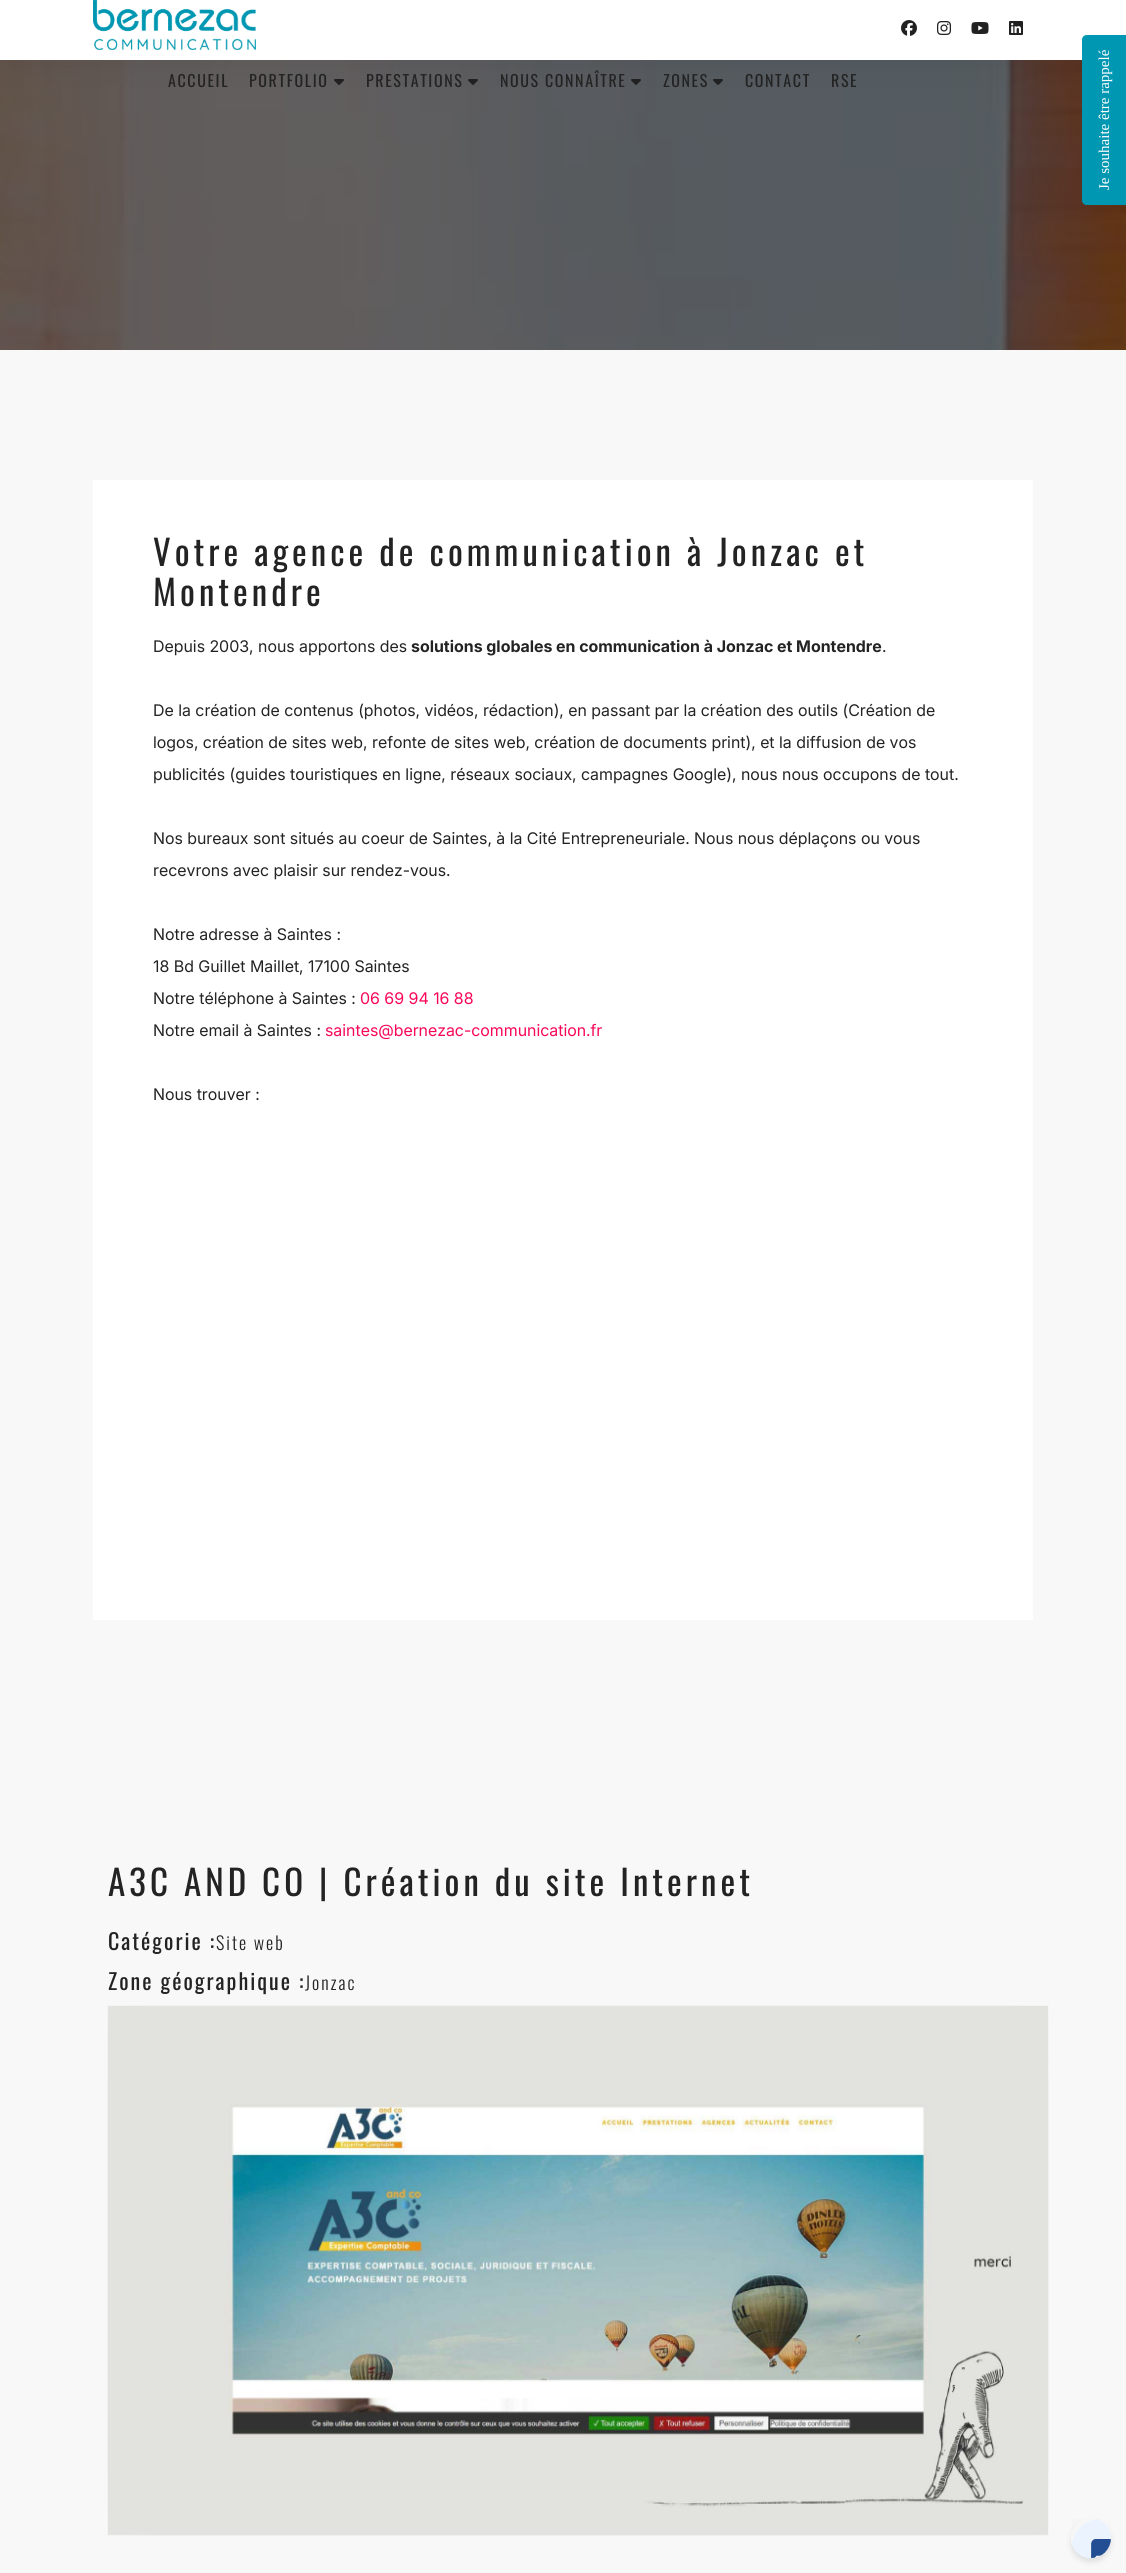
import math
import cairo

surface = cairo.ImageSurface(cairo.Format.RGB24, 1126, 2573)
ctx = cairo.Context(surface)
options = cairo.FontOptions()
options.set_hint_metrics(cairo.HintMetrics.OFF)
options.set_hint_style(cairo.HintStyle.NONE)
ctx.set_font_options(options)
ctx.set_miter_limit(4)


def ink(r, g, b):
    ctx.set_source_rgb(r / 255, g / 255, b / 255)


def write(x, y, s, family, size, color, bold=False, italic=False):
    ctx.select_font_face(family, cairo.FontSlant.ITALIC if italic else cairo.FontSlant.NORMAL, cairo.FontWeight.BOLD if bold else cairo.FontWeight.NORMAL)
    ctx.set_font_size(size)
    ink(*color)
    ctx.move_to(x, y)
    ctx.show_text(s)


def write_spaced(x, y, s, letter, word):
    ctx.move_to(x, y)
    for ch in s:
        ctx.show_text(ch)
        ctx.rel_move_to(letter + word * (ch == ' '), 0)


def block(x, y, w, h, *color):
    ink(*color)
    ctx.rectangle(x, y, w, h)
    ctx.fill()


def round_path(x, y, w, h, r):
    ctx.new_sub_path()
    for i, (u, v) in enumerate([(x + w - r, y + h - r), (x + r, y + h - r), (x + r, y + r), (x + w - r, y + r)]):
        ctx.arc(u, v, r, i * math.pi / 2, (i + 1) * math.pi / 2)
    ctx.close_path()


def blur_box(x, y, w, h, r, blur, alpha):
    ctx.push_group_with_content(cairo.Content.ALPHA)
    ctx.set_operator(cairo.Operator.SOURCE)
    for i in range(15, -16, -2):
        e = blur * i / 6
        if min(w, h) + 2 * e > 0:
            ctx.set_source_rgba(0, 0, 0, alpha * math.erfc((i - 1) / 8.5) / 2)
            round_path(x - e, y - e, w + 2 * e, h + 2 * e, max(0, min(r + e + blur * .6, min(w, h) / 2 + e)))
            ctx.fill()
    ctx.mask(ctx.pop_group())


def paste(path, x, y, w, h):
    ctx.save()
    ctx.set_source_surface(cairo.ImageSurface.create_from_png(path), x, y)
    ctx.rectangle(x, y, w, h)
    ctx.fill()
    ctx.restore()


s1 = dict(family="Inter", size=16, color=(35, 35, 35))
s2 = dict(family="Inter", size=16, color=(35, 35, 35), bold=True)
s3 = dict(family="Inter", size=16, color=(248, 7, 89))
s4 = dict(family="Liberation Serif", size=15, color=(255, 255, 255))

ink(248, 248, 248)
ctx.paint()
paste("pic1.png", 0, 60, 1126, 290)
ink(0, 0, 0)
blur_box(0, 10, 1126, 60, 0, 15, 0.05)
block(0, 0, 1126, 60, 255, 255, 255)
paste("pic2.png", 93, 0, 163, 50)
paste("pic3.png", 901, 20, 16, 16)
paste("pic4.png", 937, 21, 14, 14)
paste("pic5.png", 971, 22, 18, 12)
paste("pic6.png", 1009, 21, 14, 14)
ctx.select_font_face("Oswald")
ctx.set_font_size(16)
ink(35, 35, 35)
write_spaced(168, 87, "ACCUEIL", 1.6, 0)
write_spaced(249, 87, "PORTFOLIO", 1.6, 0)
paste("pic7.png", 334, 79, 10, 6)
write_spaced(366, 87, "PRESTATIONS", 1.6, 0)
paste("pic8.png", 468, 79, 10, 6)
write_spaced(500, 87, "NOUS CONNAÎTRE", 1.6, 0)
paste("pic9.png", 631, 79, 10, 6)
write_spaced(663, 87, "ZONES", 1.6, 0)
paste("pic10.png", 713, 79, 10, 6)
write_spaced(745, 87, "CONTACT", 1.6, 0)
write_spaced(831, 87, "RSE", 1.6, 0)
block(93, 480, 940, 1140, 255, 255, 255)
ctx.set_font_size(35)
ink(35, 35, 35)
write_spaced(153, 566, "Votre agence de communication à Jonzac et", 4, 0)
write_spaced(153, 606, "Montendre", 4, 0)
write(153, 652, "Depuis 2003, nous apportons des", **s1)
write(411, 652, "solutions globales en communication à Jonzac et Montendre", **s2)
write(882, 652, ".", **s1)
write(153, 716, "De la création de contenus (photos, vidéos, rédaction), en passant par la création des outils (Création de", **s1)
write(153, 748, "logos, création de sites web, refonte de sites web, création de documents print), et la diffusion de vos", **s1)
write(153, 780, "publicités (guides touristiques en ligne, réseaux sociaux, campagnes Google), nous nous occupons de tout.", **s1)
write(153, 844, "Nos bureaux sont situés au coeur de Saintes, à la Cité Entrepreneuriale. Nous nous déplaçons ou vous", **s1)
write(153, 876, "recevrons avec plaisir sur rendez-vous.", **s1)
write(153, 940, "Notre adresse à Saintes :", **s1)
write(153, 972, "18 Bd Guillet Maillet, 17100 Saintes", **s1)
write(153, 1004, "Notre téléphone à Saintes :", **s1)
write(360, 1004, "06 69 94 16 88", **s3)
write(153, 1036, "Notre email à Saintes :", **s1)
write(325, 1036, "saintes@bernezac-communication.fr", **s3)
write(153, 1100, "Nous trouver :", **s1)
ctx.select_font_face("Oswald")
ctx.set_font_size(35)
write_spaced(108, 1896, "A3C AND CO | Création du site Internet", 4, 0)
ctx.set_font_size(22)
write_spaced(108, 1950, "Catégorie :", 2, 0)
ctx.select_font_face("Oswald Light")
ctx.set_font_size(18)
write_spaced(216, 1950, "Site web", 2, 0)
ctx.select_font_face("Oswald")
ctx.set_font_size(22)
write_spaced(108, 1990, "Zone géographique :", 2, 0)
ctx.select_font_face("Oswald Light")
ctx.set_font_size(18)
write_spaced(305, 1990, "Jonzac", 2, 0)
paste("pic11.png", 107, 2005, 942, 531)
ink(0, 151, 178)
ctx.new_path()
ctx.move_to(1082, 200)
ctx.line_to(1082, 40)
ctx.curve_to(1082, 37, 1084, 35, 1087, 35)
ctx.line_to(1126, 35)
ctx.line_to(1126, 205)
ctx.line_to(1087, 205)
ctx.curve_to(1084, 205, 1082, 203, 1082, 200)
ctx.close_path()
ctx.fill()
ctx.save()
ctx.translate(1109, 190)
ctx.rotate(-90 * math.pi / 180)
write(0, 0, "Je souhaite être rappelé", **s4)
ctx.restore()
ctx.save()
ctx.set_fill_rule(cairo.FillRule.EVEN_ODD)
ctx.new_path()
ctx.move_to(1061, 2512)
ctx.line_to(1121, 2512)
ctx.line_to(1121, 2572)
ctx.line_to(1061, 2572)
ctx.close_path()
ctx.move_to(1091, 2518)
ctx.curve_to(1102, 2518, 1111, 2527, 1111, 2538)
ctx.curve_to(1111, 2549, 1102, 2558, 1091, 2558)
ctx.curve_to(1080, 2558, 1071, 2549, 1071, 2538)
ctx.curve_to(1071, 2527, 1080, 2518, 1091, 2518)
ctx.close_path()
ctx.clip()
ink(0, 0, 0)
blur_box(1071, 2522, 40, 40, 20, 3, 0.1)
ctx.restore()
paste("pic12.png", 1072, 2519, 39, 39)
surface.write_to_png("screenshot.png")
